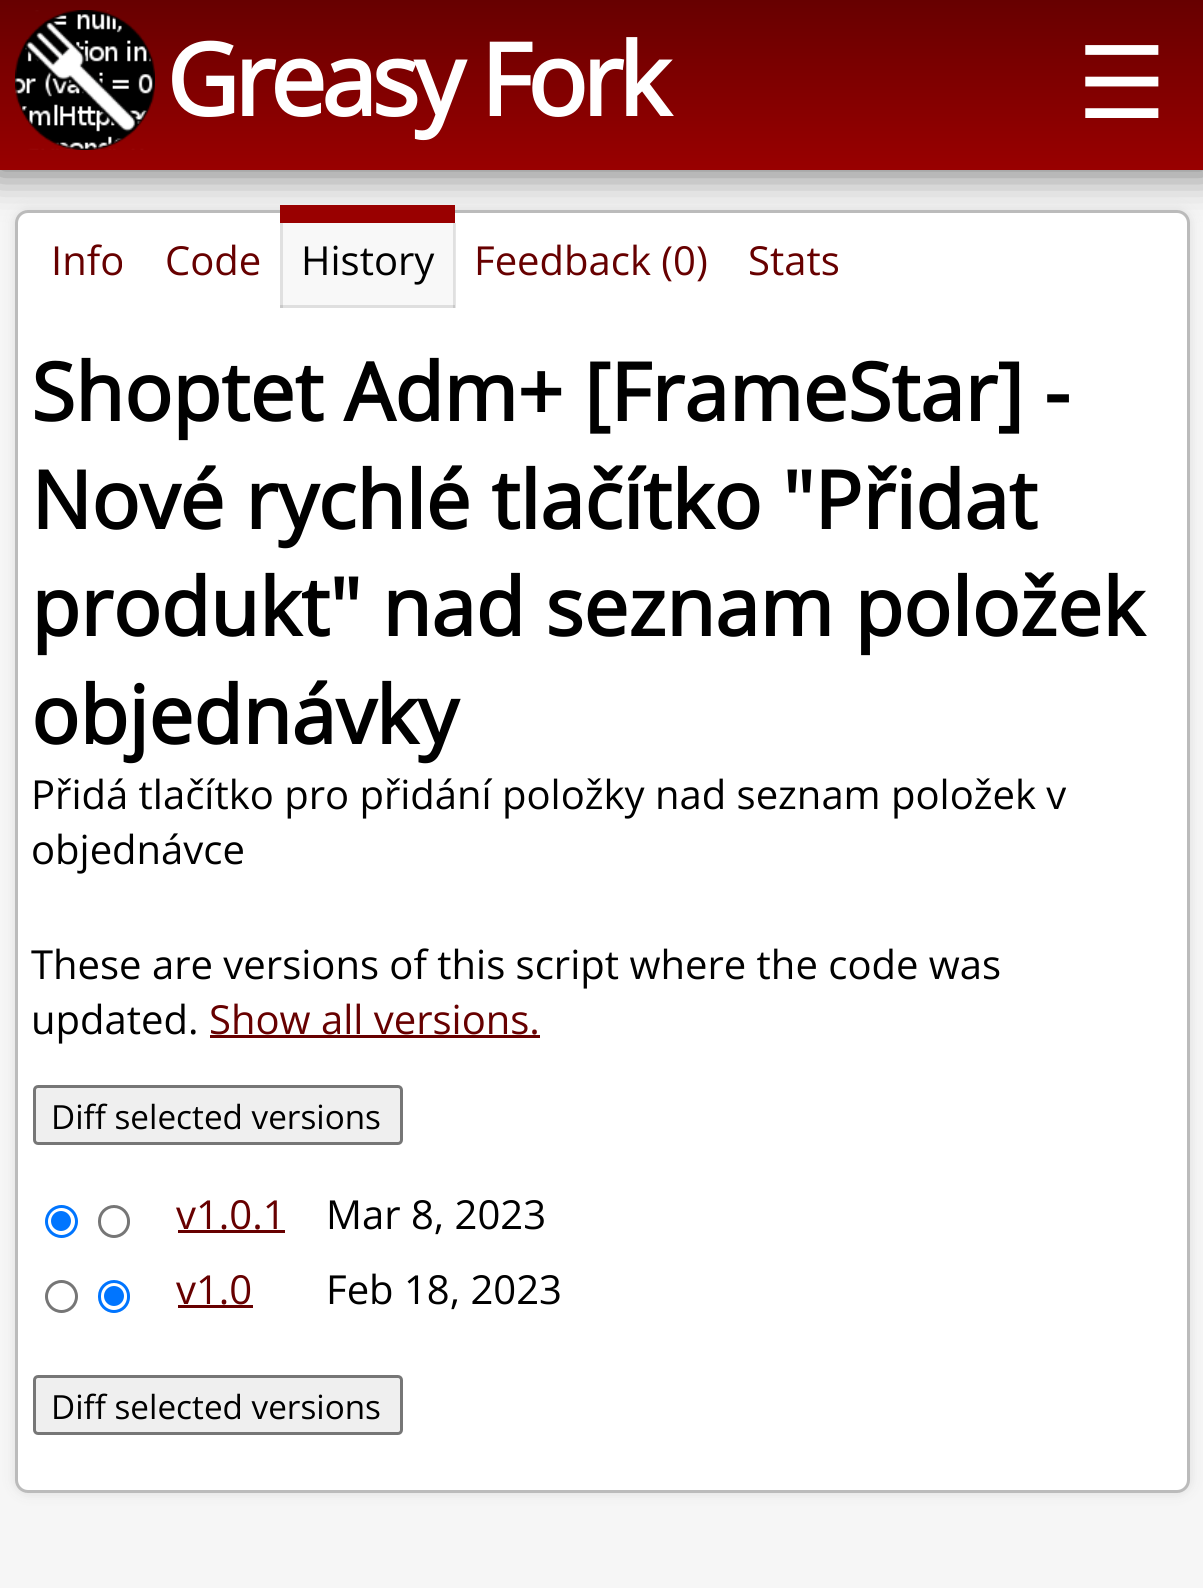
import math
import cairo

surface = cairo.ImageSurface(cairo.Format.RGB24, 1203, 1588)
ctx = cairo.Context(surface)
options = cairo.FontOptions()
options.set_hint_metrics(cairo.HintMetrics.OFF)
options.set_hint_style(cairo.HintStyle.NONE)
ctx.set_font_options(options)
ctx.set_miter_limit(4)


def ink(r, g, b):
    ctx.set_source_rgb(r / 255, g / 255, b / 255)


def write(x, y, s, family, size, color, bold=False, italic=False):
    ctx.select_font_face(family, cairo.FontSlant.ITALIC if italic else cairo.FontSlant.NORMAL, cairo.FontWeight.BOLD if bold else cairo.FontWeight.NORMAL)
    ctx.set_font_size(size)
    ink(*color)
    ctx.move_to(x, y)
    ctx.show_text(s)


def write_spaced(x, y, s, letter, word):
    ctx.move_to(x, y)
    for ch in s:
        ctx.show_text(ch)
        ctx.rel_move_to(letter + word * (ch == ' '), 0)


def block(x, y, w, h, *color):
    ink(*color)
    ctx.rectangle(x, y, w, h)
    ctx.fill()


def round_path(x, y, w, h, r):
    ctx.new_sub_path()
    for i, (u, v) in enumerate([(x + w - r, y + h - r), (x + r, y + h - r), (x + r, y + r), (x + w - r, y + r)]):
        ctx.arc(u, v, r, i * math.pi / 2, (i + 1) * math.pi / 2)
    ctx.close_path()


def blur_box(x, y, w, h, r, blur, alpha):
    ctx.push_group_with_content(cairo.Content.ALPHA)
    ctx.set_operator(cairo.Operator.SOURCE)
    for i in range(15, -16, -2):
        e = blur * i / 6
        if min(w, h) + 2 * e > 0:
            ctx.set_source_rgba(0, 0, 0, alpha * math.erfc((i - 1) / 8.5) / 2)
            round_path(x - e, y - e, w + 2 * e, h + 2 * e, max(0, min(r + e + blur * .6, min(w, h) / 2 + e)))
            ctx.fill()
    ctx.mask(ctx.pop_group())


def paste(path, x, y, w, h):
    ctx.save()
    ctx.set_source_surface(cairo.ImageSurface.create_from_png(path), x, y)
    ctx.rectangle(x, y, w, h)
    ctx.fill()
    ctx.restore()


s1 = dict(family="DejaVu Sans", size=100, color=(255, 255, 255))
s2 = dict(family="Open Sans", size=40, color=(103, 0, 0))
s3 = dict(family="Open Sans", size=40, color=(0, 0, 0))
s4 = dict(family="Open Sans", size=80, color=(0, 0, 0), bold=True)
s5 = dict(family="Open Sans", size=33.25, color=(0, 0, 0))

ink(246, 246, 246)
ctx.paint()
ink(0, 0, 0)
blur_box(-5, -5, 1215, 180, 0, 19, 0.5)
gradient = cairo.LinearGradient(603, 0, 603, 170)
gradient.add_color_stop_rgba(0, 0.404, 0, 0, 1)
gradient.add_color_stop_rgba(1, 0.6, 0, 0, 1)
ctx.set_source(gradient)
ctx.rectangle(0, 0, 1203, 170)
ctx.fill()
paste("pic1.png", 15, 10, 140, 140)
ctx.select_font_face("Open Sans", cairo.FontSlant.NORMAL, cairo.FontWeight.BOLD)
ctx.set_font_size(100)
ink(255, 255, 255)
write_spaced(166, 116, "Greasy Fork", -5, 0)
write(1077, 118, "☰", **s1)
ink(221, 221, 221)
blur_box(15, 210, 1175, 1283, 13, 6, 1)
ink(255, 255, 255)
round_path(16.5, 211.5, 1172, 1280, 11.5)
ctx.fill_preserve()
ink(187, 187, 187)
ctx.set_line_width(3)
ctx.stroke()
write(51, 275, "Info", **s2)
write(165, 275, "Code", **s2)
ctx.set_source_rgba(0, 0, 0, 0.03)
ctx.rectangle(280, 223, 175, 82)
ctx.fill()
block(280, 305, 175, 3, 223, 223, 223)
ctx.set_source_rgba(0, 0, 0, 0.1)
ctx.rectangle(453, 223, 3, 85)
ctx.fill()
ctx.rectangle(280, 223, 3, 85)
ctx.fill()
block(280, 205, 175, 18, 153, 0, 0)
write(301, 275, "History", **s3)
write(474, 275, "Feedback (0)", **s2)
write(748, 275, "Stats", **s2)
write(31, 421, "Shoptet Adm+ [FrameStar] -", **s4)
write(31, 529, "Nové rychlé tlačítko \"Přidat", **s4)
write(31, 636, "produkt\" nad seznam položek", **s4)
write(31, 744, "objednávky", **s4)
write(31, 809, "Přidá tlačítko pro přidání položky nad seznam položek v", **s3)
write(31, 864, "objednávce", **s3)
write(31, 979, "These are versions of this script where the code was", **s3)
write(31, 1034, "updated.", **s3)
write(209, 1034, "Show all versions.", **s2)
block(210, 1035, 330, 3, 103, 0, 0)
ink(239, 239, 239)
round_path(34.5, 1086.5, 367, 57, 3.5)
ctx.fill_preserve()
ink(118, 118, 118)
ctx.stroke()
write(51, 1129, "Diff selected versions", **s5)
ctx.new_path()
ctx.arc(61.5, 1221.5, 15, 0, 2 * math.pi)
ink(0, 117, 255)
ctx.stroke()
ctx.arc(61, 1221, 10, 0, 2 * math.pi)
ctx.fill()
round_path(99.5, 1206.5, 29, 30, 14.5)
ink(118, 118, 118)
ctx.stroke()
write(176, 1229, "v1.0.1", **s2)
block(178, 1230, 107, 3, 103, 0, 0)
write(326, 1229, "Mar 8, 2023", **s3)
ctx.new_path()
ctx.arc(61.5, 1296.5, 15, 0, 2 * math.pi)
ink(118, 118, 118)
ctx.stroke()
round_path(99.5, 1281.5, 29, 30, 14.5)
ink(0, 117, 255)
ctx.stroke()
ctx.arc(114, 1296, 10, 0, 2 * math.pi)
ctx.fill()
write(176, 1304, "v1.0", **s2)
block(178, 1305, 75, 3, 103, 0, 0)
write(326, 1304, "Feb 18, 2023", **s3)
ink(239, 239, 239)
round_path(34.5, 1376.5, 367, 57, 3.5)
ctx.fill_preserve()
ink(118, 118, 118)
ctx.stroke()
write(51, 1419, "Diff selected versions", **s5)
surface.write_to_png("screenshot.png")
